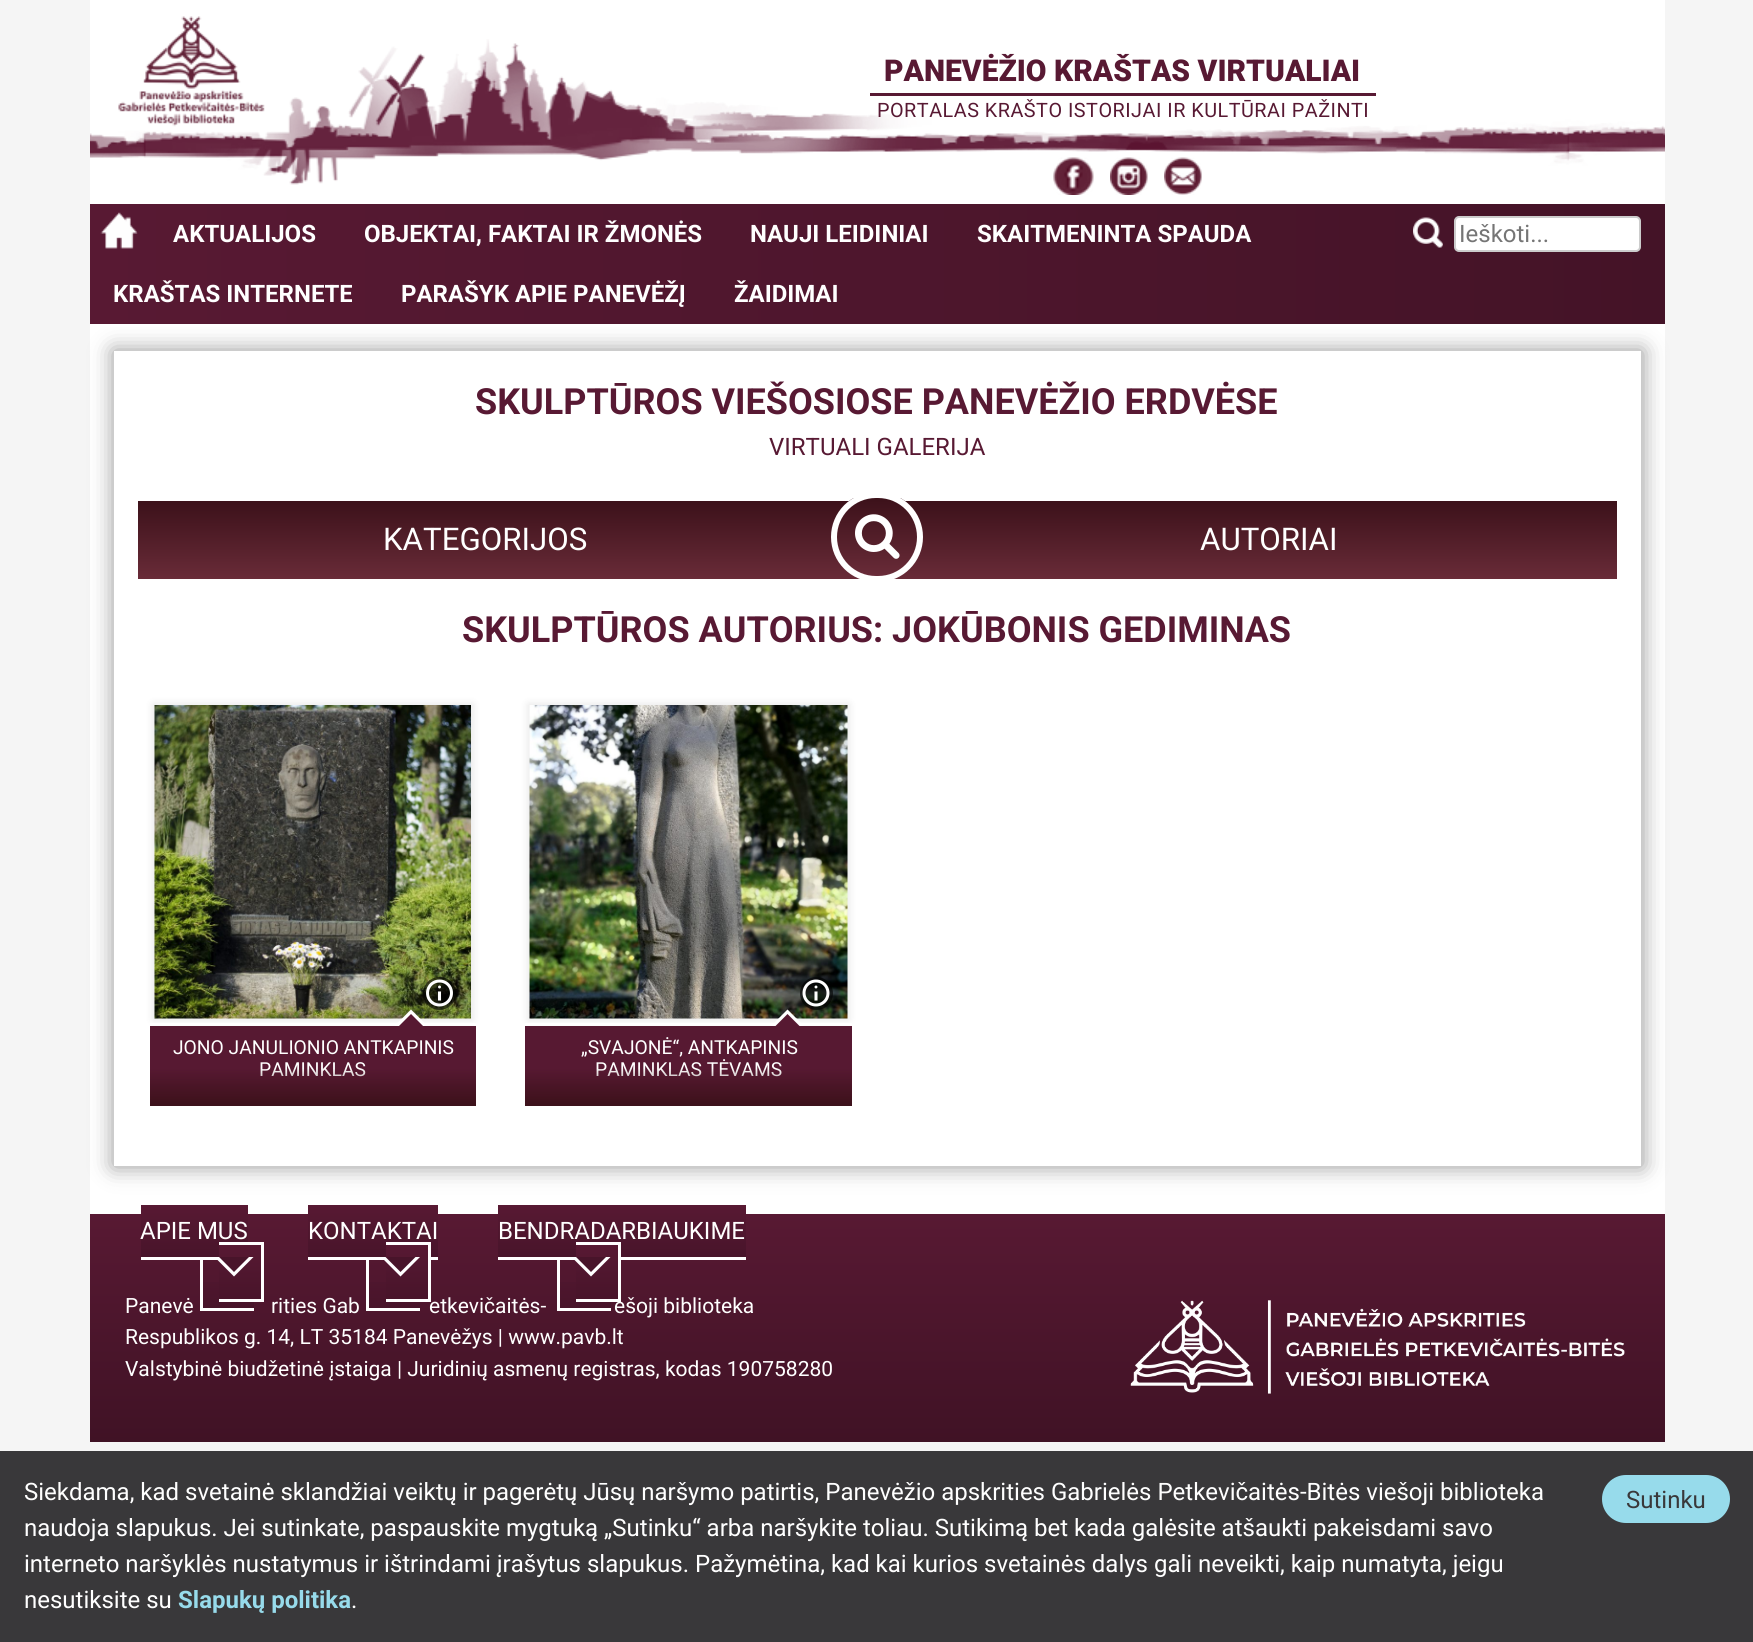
import math
import cairo

surface = cairo.ImageSurface(cairo.Format.RGB24, 1753, 1642)
ctx = cairo.Context(surface)
options = cairo.FontOptions()
options.set_hint_metrics(cairo.HintMetrics.OFF)
options.set_hint_style(cairo.HintStyle.NONE)
ctx.set_font_options(options)
ctx.set_miter_limit(4)


def ink(r, g, b):
    ctx.set_source_rgb(r / 255, g / 255, b / 255)


def write(x, y, s, family, size, color, bold=False, italic=False):
    ctx.select_font_face(family, cairo.FontSlant.ITALIC if italic else cairo.FontSlant.NORMAL, cairo.FontWeight.BOLD if bold else cairo.FontWeight.NORMAL)
    ctx.set_font_size(size)
    ink(*color)
    ctx.move_to(x, y)
    ctx.show_text(s)


def write_spaced(x, y, s, letter, word):
    ctx.move_to(x, y)
    for ch in s:
        ctx.show_text(ch)
        ctx.rel_move_to(letter + word * (ch == ' '), 0)


def block(x, y, w, h, *color):
    ink(*color)
    ctx.rectangle(x, y, w, h)
    ctx.fill()


def round_path(x, y, w, h, r):
    ctx.new_sub_path()
    for i, (u, v) in enumerate([(x + w - r, y + h - r), (x + r, y + h - r), (x + r, y + r), (x + w - r, y + r)]):
        ctx.arc(u, v, r, i * math.pi / 2, (i + 1) * math.pi / 2)
    ctx.close_path()


def blur_box(x, y, w, h, r, blur, alpha):
    ctx.push_group_with_content(cairo.Content.ALPHA)
    ctx.set_operator(cairo.Operator.SOURCE)
    for i in range(15, -16, -2):
        e = blur * i / 6
        if min(w, h) + 2 * e > 0:
            ctx.set_source_rgba(0, 0, 0, alpha * math.erfc((i - 1) / 8.5) / 2)
            round_path(x - e, y - e, w + 2 * e, h + 2 * e, max(0, min(r + e + blur * .6, min(w, h) / 2 + e)))
            ctx.fill()
    ctx.mask(ctx.pop_group())


def paste(path, x, y, w, h):
    ctx.save()
    ctx.set_source_surface(cairo.ImageSurface.create_from_png(path), x, y)
    ctx.rectangle(x, y, w, h)
    ctx.fill()
    ctx.restore()


s1 = dict(family="Roboto Black", size=30, color=(88, 25, 51))
s2 = dict(family="Roboto", size=24, color=(255, 255, 255), bold=True)
s3 = dict(family="Roboto", size=24, color=(117, 117, 117))
s4 = dict(family="Roboto", size=36, color=(88, 25, 51), bold=True)
s5 = dict(family="Roboto", size=24, color=(88, 25, 51))
s6 = dict(family="Roboto", size=31.25, color=(255, 255, 255))
s7 = dict(family="Roboto", size=19.25, color=(255, 255, 255))
s8 = dict(family="Roboto", size=24, color=(255, 255, 255))
s9 = dict(family="Roboto", size=21, color=(255, 255, 255))
s10 = dict(family="Roboto", size=24, color=(151, 219, 235), bold=True)
s11 = dict(family="Roboto", size=24, color=(57, 56, 58))

ink(245, 245, 245)
ctx.paint()
block(90, 0, 1575, 204, 255, 255, 255)
paste("pic1.png", 90, 16, 1575, 169)
block(870, 93, 506, 3, 88, 25, 51)
write(884, 81, "PANEVĖŽIO KRAŠTAS VIRTUALIAI", **s1)
ctx.select_font_face("Roboto")
ctx.set_font_size(19.8)
write_spaced(877, 117, "PORTALAS KRAŠTO ISTORIJAI IR KULTŪRAI PAŽINTI", 0.5, 0)
paste("pic2.png", 1053, 157, 41, 38)
paste("pic3.png", 1110, 157, 38, 38)
paste("pic4.png", 1164, 157, 38, 38)
block(90, 327, 1575, 887, 255, 255, 255)
ctx.save()
ctx.set_fill_rule(cairo.FillRule.EVEN_ODD)
ctx.new_path()
ctx.move_to(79, 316)
ctx.line_to(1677, 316)
ctx.line_to(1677, 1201)
ctx.line_to(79, 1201)
ctx.close_path()
ctx.move_to(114, 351)
ctx.line_to(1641, 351)
ctx.line_to(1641, 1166)
ctx.line_to(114, 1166)
ctx.close_path()
ctx.clip()
ink(0, 0, 0)
blur_box(113, 350, 1530, 817, 0, 11, 0.4)
ctx.restore()
gradient = cairo.LinearGradient(90, 264, 1665, 264)
gradient.add_color_stop_rgba(0, 0.345, 0.098, 0.2, 1)
gradient.add_color_stop_rgba(1, 0.267, 0.075, 0.153, 1)
ctx.set_source(gradient)
ctx.rectangle(90, 204, 1575, 120)
ctx.fill()
block(90, 324, 1575, 3, 255, 255, 255)
paste("pic5.png", 100, 212, 38, 37)
write(173, 242, "AKTUALIJOS", **s2)
write(364, 242, "OBJEKTAI, FAKTAI IR ŽMONĖS", **s2)
write(750, 242, "NAUJI LEIDINIAI", **s2)
write(977, 242, "SKAITMENINTA SPAUDA", **s2)
write(113, 302, "KRAŠTAS INTERNETE", **s2)
write(401, 302, "PARAŠYK APIE PANEVĖŽĮ", **s2)
write(734, 302, "ŽAIDIMAI", **s2)
paste("pic6.png", 1413, 217, 30, 31)
round_path(1455, 217, 185, 34, 4)
ctx.fill_preserve()
ink(204, 204, 204)
ctx.stroke()
write(1459, 242, "Ieškoti...", **s3)
write(475, 414, "SKULPTŪROS VIEŠOSIOSE PANEVĖŽIO ERDVĖSE", **s4)
write(769, 455, "VIRTUALI GALERIJA", **s5)
gradient = cairo.LinearGradient(878, 501, 878, 579)
gradient.add_color_stop_rgba(0, 0.235, 0.067, 0.102, 1)
gradient.add_color_stop_rgba(1, 0.412, 0.169, 0.22, 1)
ctx.set_source(gradient)
ctx.rectangle(138, 501, 1479, 78)
ctx.fill()
write(383, 550, "KATEGORIJOS", **s6)
ctx.save()
round_path(831, 492, 92, 90, 45)
ctx.clip()
gradient = cairo.LinearGradient(877, 498, 877, 576)
gradient.add_color_stop_rgba(0, 0.235, 0.067, 0.102, 1)
gradient.add_color_stop_rgba(1, 0.412, 0.169, 0.22, 1)
ctx.set_source(gradient)
ctx.rectangle(831, 498, 92, 78)
ctx.fill()
ctx.restore()
round_path(834, 495, 86, 84, 42)
ctx.set_line_width(6)
ctx.stroke()
paste("pic7.png", 855, 514, 45, 45)
write(1200, 550, "AUTORIAI", **s6)
write(462, 642, "SKULPTŪROS AUTORIUS: JOKŪBONIS GEDIMINAS", **s4)
ink(0, 0, 0)
blur_box(153, 704, 320, 316, 0, 4, 0.1)
paste("pic8.png", 154, 705, 317, 314)
ctx.set_source_rgba(0, 0, 0, 0.6)
ctx.arc(439.5, 993.5, 16.5, 0, 2 * math.pi)
ctx.fill()
paste("pic9.png", 426, 979, 27, 28)
block(150, 1026, 326, 79, 87, 25, 50)
block(150, 1023, 326, 2, 255, 255, 255)
ctx.new_path()
ctx.move_to(427.5, 1026)
ctx.line_to(394.5, 1026)
ctx.line_to(411, 1009.5)
ctx.close_path()
ctx.fill()
ink(87, 25, 50)
ctx.new_path()
ctx.move_to(423, 1026)
ctx.line_to(399, 1026)
ctx.line_to(411, 1014)
ctx.close_path()
ctx.fill()
write(173, 1054, "JONO JANULIONIO ANTKAPINIS", **s7)
write(259, 1076, "PAMINKLAS", **s7)
gradient = cairo.LinearGradient(313, 1068, 313, 1106)
gradient.add_color_stop_rgba(0, 0.235, 0.067, 0.102, 0)
gradient.add_color_stop_rgba(0.99, 0.235, 0.067, 0.102, 1)
gradient.add_color_stop_rgba(1, 0.235, 0.067, 0.102, 1)
ctx.set_source(gradient)
ctx.rectangle(150, 1069, 326, 37)
ctx.fill()
ink(0, 0, 0)
blur_box(528, 704, 321, 316, 0, 4, 0.1)
paste("pic10.png", 529, 705, 319, 314)
ctx.set_source_rgba(0, 0, 0, 0.6)
ctx.arc(816.5, 993.5, 16.5, 0, 2 * math.pi)
ctx.fill()
paste("pic11.png", 802, 979, 28, 28)
block(525, 1026, 327, 79, 87, 25, 50)
block(525, 1023, 327, 2, 255, 255, 255)
ctx.new_path()
ctx.move_to(804, 1026)
ctx.line_to(771, 1026)
ctx.line_to(787.5, 1009.5)
ctx.close_path()
ctx.fill()
ink(87, 25, 50)
ctx.new_path()
ctx.move_to(799.5, 1026)
ctx.line_to(775.5, 1026)
ctx.line_to(787.5, 1014)
ctx.close_path()
ctx.fill()
write(581, 1054, "„SVAJONĖ“, ANTKAPINIS", **s7)
write(595, 1076, "PAMINKLAS TĖVAMS", **s7)
gradient = cairo.LinearGradient(689, 1068, 689, 1106)
gradient.add_color_stop_rgba(0, 0.235, 0.067, 0.102, 0)
gradient.add_color_stop_rgba(0.99, 0.235, 0.067, 0.102, 1)
gradient.add_color_stop_rgba(1, 0.235, 0.067, 0.102, 1)
ctx.set_source(gradient)
ctx.rectangle(525, 1069, 327, 37)
ctx.fill()
gradient = cairo.LinearGradient(878, 1213, 878, 1442)
gradient.add_color_stop_rgba(0, 0.345, 0.098, 0.2, 1)
gradient.add_color_stop_rgba(1, 0.251, 0.071, 0.145, 1)
ctx.set_source(gradient)
ctx.rectangle(90, 1214, 1575, 228)
ctx.fill()
gradient = cairo.LinearGradient(228, 1245, 228, 1308)
gradient.add_color_stop_rgba(0, 0.345, 0.098, 0.2, 1)
gradient.add_color_stop_rgba(1, 0.282, 0.078, 0.165, 1)
ctx.set_source(gradient)
ctx.rectangle(203, 1282, 51, 26)
ctx.fill()
block(200, 1308, 54, 3, 255, 255, 255)
block(200, 1260, 3, 51, 255, 255, 255)
gradient = cairo.LinearGradient(194, 1205, 194, 1257)
gradient.add_color_stop_rgba(0, 0.345, 0.098, 0.2, 1)
gradient.add_color_stop_rgba(1, 0.282, 0.078, 0.165, 1)
ctx.set_source(gradient)
ctx.rectangle(141, 1205, 107, 52)
ctx.fill()
block(141, 1257, 77, 3, 255, 255, 255)
gradient = cairo.LinearGradient(240, 1245, 240, 1299)
gradient.add_color_stop_rgba(0, 0.345, 0.098, 0.2, 1)
gradient.add_color_stop_rgba(1, 0.282, 0.078, 0.165, 1)
ctx.set_source(gradient)
ctx.rectangle(219, 1245, 42, 54)
ctx.fill()
block(219, 1242, 45, 3, 255, 255, 255)
block(261, 1242, 3, 60, 255, 255, 255)
block(219, 1299, 45, 3, 255, 255, 255)
write(140, 1239, "APIE MUS", **s8)
ctx.new_path()
ctx.move_to(214.5, 1257)
ctx.line_to(253.5, 1257)
ctx.line_to(234, 1276.5)
ctx.close_path()
ctx.fill()
ink(72, 20, 42)
ctx.new_path()
ctx.move_to(219, 1257)
ctx.line_to(249, 1257)
ctx.line_to(234, 1272)
ctx.close_path()
ctx.fill()
gradient = cairo.LinearGradient(395, 1245, 395, 1308)
gradient.add_color_stop_rgba(0, 0.345, 0.098, 0.2, 1)
gradient.add_color_stop_rgba(1, 0.282, 0.078, 0.165, 1)
ctx.set_source(gradient)
ctx.rectangle(369, 1282, 51, 26)
ctx.fill()
block(366, 1308, 54, 3, 255, 255, 255)
block(366, 1260, 3, 51, 255, 255, 255)
gradient = cairo.LinearGradient(373, 1205, 373, 1257)
gradient.add_color_stop_rgba(0, 0.345, 0.098, 0.2, 1)
gradient.add_color_stop_rgba(1, 0.282, 0.078, 0.165, 1)
ctx.set_source(gradient)
ctx.rectangle(308, 1205, 130, 52)
ctx.fill()
block(308, 1257, 130, 3, 255, 255, 255)
gradient = cairo.LinearGradient(407, 1245, 407, 1299)
gradient.add_color_stop_rgba(0, 0.345, 0.098, 0.2, 1)
gradient.add_color_stop_rgba(1, 0.282, 0.078, 0.165, 1)
ctx.set_source(gradient)
ctx.rectangle(386, 1245, 42, 54)
ctx.fill()
block(386, 1242, 45, 3, 255, 255, 255)
block(428, 1242, 3, 60, 255, 255, 255)
block(386, 1299, 45, 3, 255, 255, 255)
write(308, 1239, "KONTAKTAI", **s8)
ctx.new_path()
ctx.move_to(381, 1257)
ctx.line_to(420, 1257)
ctx.line_to(400.5, 1276.5)
ctx.close_path()
ctx.fill()
ink(72, 20, 42)
ctx.new_path()
ctx.move_to(385.5, 1257)
ctx.line_to(415.5, 1257)
ctx.line_to(400.5, 1272)
ctx.close_path()
ctx.fill()
gradient = cairo.LinearGradient(585, 1245, 585, 1308)
gradient.add_color_stop_rgba(0, 0.345, 0.098, 0.2, 1)
gradient.add_color_stop_rgba(1, 0.282, 0.078, 0.165, 1)
ctx.set_source(gradient)
ctx.rectangle(560, 1282, 51, 26)
ctx.fill()
block(557, 1308, 54, 3, 255, 255, 255)
block(557, 1260, 3, 51, 255, 255, 255)
gradient = cairo.LinearGradient(622, 1205, 622, 1257)
gradient.add_color_stop_rgba(0, 0.345, 0.098, 0.2, 1)
gradient.add_color_stop_rgba(1, 0.282, 0.078, 0.165, 1)
ctx.set_source(gradient)
ctx.rectangle(498, 1205, 248, 52)
ctx.fill()
block(498, 1257, 248, 3, 255, 255, 255)
write(614, 1313, "ešoji biblioteka", **s9)
gradient = cairo.LinearGradient(597, 1245, 597, 1299)
gradient.add_color_stop_rgba(0, 0.345, 0.098, 0.2, 1)
gradient.add_color_stop_rgba(1, 0.282, 0.078, 0.165, 1)
ctx.set_source(gradient)
ctx.rectangle(576, 1245, 42, 54)
ctx.fill()
block(576, 1242, 45, 3, 255, 255, 255)
block(618, 1242, 3, 60, 255, 255, 255)
block(576, 1299, 45, 3, 255, 255, 255)
write(498, 1239, "BENDRADARBIAUKIME", **s8)
ctx.new_path()
ctx.move_to(571.5, 1257)
ctx.line_to(610.5, 1257)
ctx.line_to(591, 1276.5)
ctx.close_path()
ctx.fill()
ink(72, 20, 42)
ctx.new_path()
ctx.move_to(576, 1257)
ctx.line_to(606, 1257)
ctx.line_to(591, 1272)
ctx.close_path()
ctx.fill()
write(125, 1313, "Panevė", **s9)
write(271, 1313, "rities Gab", **s9)
write(429, 1313, "etkevičaitės-", **s9)
write(125, 1344, "Respublikos g. 14, LT 35184 Panevėžys | www.pavb.lt", **s9)
write(125, 1376, "Valstybinė biudžetinė įstaiga | Juridinių asmenų registras, kodas 190758280", **s9)
paste("pic12.png", 1130, 1300, 495, 94)
block(0, 1451, 1753, 191, 57, 56, 58)
write(24, 1500, "Siekdama, kad svetainė sklandžiai veiktų ir pagerėtų Jūsų naršymo patirtis, Panevėžio apskrities Gabrielės Petkevičaitės-Bitės viešoji biblioteka", **s8)
write(24, 1536, "naudoja slapukus. Jei sutinkate, paspauskite mygtuką „Sutinku“ arba naršykite toliau. Sutikimą bet kada galėsite atšaukti pakeisdami savo", **s8)
write(24, 1572, "interneto naršyklės nustatymus ir ištrindami įrašytus slapukus. Pažymėtina, kad kai kurios svetainės dalys gali neveikti, kaip numatyta, jeigu", **s8)
write(24, 1608, "nesutiksite su", **s8)
write(178, 1608, "Slapukų politika", **s10)
write(351, 1608, ".", **s8)
ink(151, 219, 235)
round_path(1602, 1475, 128, 48, 24)
ctx.fill()
write(1626, 1508, "Sutinku", **s11)
surface.write_to_png("screenshot.png")
